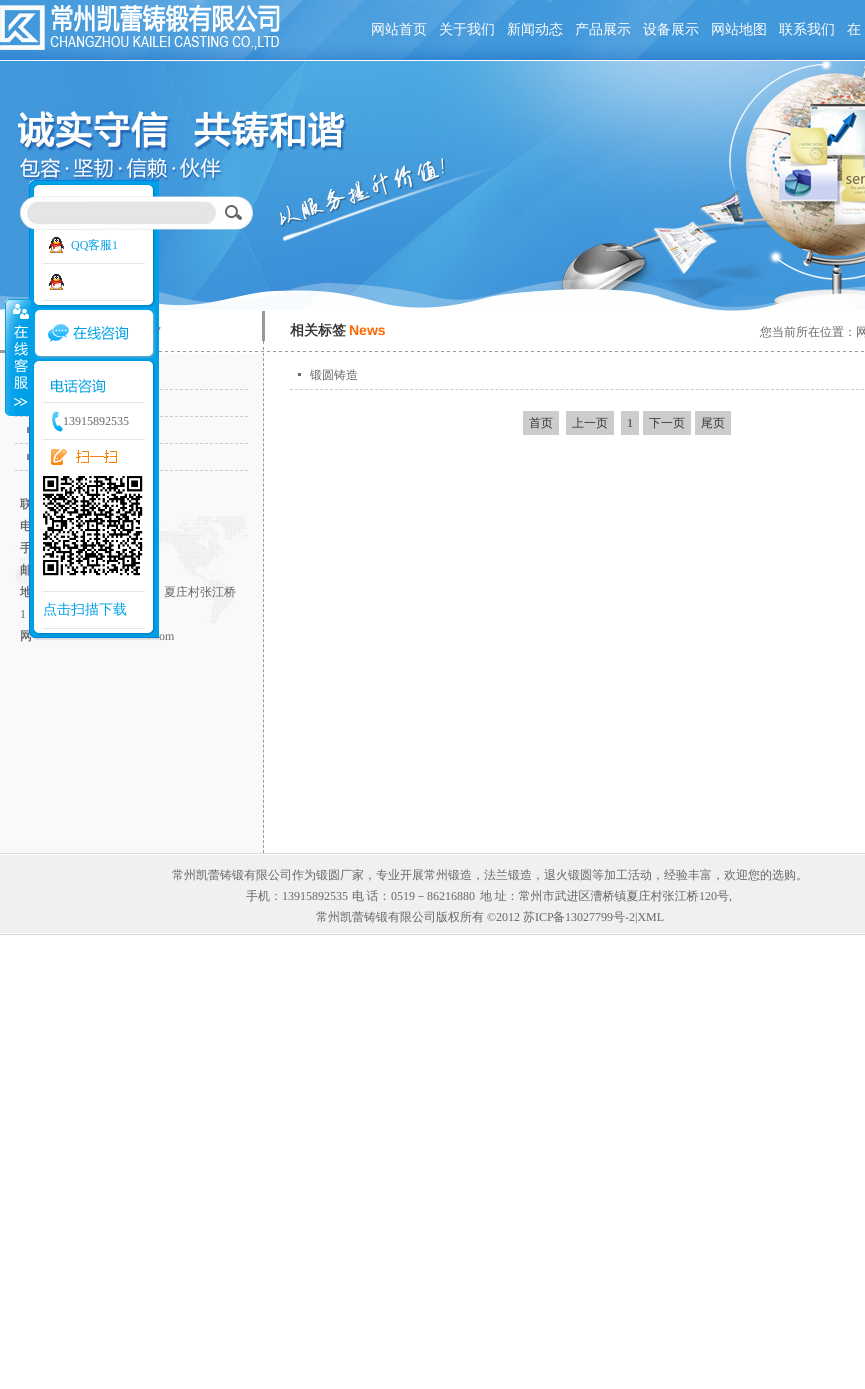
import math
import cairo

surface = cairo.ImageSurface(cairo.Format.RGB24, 865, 1389)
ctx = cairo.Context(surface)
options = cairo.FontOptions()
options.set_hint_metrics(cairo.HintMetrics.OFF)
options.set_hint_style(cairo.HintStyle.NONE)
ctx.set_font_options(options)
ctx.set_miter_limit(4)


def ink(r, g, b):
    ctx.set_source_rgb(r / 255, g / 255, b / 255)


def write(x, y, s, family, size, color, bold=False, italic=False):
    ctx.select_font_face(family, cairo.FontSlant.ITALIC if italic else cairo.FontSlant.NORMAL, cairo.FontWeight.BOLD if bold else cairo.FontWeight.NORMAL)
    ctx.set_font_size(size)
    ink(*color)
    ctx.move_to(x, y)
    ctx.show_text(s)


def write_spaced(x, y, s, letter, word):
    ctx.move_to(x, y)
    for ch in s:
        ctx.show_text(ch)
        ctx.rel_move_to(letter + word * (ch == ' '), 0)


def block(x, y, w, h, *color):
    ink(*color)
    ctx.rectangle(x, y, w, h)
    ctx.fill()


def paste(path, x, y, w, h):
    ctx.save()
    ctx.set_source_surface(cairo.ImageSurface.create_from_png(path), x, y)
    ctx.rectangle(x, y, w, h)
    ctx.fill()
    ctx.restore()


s1 = dict(family="WenQuanYi Zen Hei Medium", size=14, color=(255, 255, 255))
s2 = dict(family="WenQuanYi Zen Hei", size=12, color=(102, 102, 102), bold=True)
s3 = dict(family="Liberation Serif", size=12, color=(0, 160, 233))
s4 = dict(family="WenQuanYi Zen Hei Medium", size=12, color=(0, 160, 233))
s5 = dict(family="Liberation Serif", size=12, color=(102, 102, 102))
s6 = dict(family="WenQuanYi Zen Hei Medium", size=14, color=(0, 160, 233))
s7 = dict(family="WenQuanYi Zen Hei", size=14, color=(51, 51, 51), bold=True)
s8 = dict(family="Liberation Sans", size=14, color=(255, 102, 0), bold=True)
s9 = dict(family="WenQuanYi Zen Hei Medium", size=12, color=(102, 102, 102))
s10 = dict(family="WenQuanYi Zen Hei Medium", size=12, color=(51, 51, 51))
s11 = dict(family="Liberation Serif", size=12, color=(51, 51, 51))

ink(255, 255, 255)
ctx.paint()
paste("pic1.png", 0, 0, 865, 60)
paste("pic2.png", 34, 0, 754, 61)
paste("pic3.png", 0, 5, 280, 45)
write(371, 34, "网站首页", **s1)
write(439, 34, "关于我们", **s1)
write(507, 34, "新闻动态", **s1)
write(575, 34, "产品展示", **s1)
write(643, 34, "设备展示", **s1)
write(711, 34, "网站地图", **s1)
write(779, 34, "联系我们", **s1)
write(847, 34, "在", **s1)
paste("pic4.png", 0, 61, 865, 250)
paste("pic19.png", 0, 311, 864, 42)
block(0, 353, 264, 500, 249, 249, 249)
ctx.new_path()
ctx.move_to(15, 389.5)
ctx.line_to(248, 389.5)
ink(204, 204, 204)
ctx.set_line_width(1)
ctx.set_dash([3, 2])
ctx.stroke()
ctx.new_path()
ctx.move_to(15, 416.5)
ctx.line_to(248, 416.5)
ctx.stroke()
ctx.new_path()
ctx.move_to(15, 443.5)
ctx.line_to(248, 443.5)
ctx.stroke()
ctx.new_path()
ctx.move_to(15, 470.5)
ctx.line_to(248, 470.5)
ctx.stroke()
paste("pic21.png", 15, 516, 233, 108)
write(20, 508, "联", **s2)
write(20, 530, "电", **s2)
write(20, 552, "手", **s2)
write(20, 574, "邮", **s2)
write(20, 596, "地", **s2)
paste("pic10.png", 29, 190, 130, 439)
paste("pic5.png", 20, 196, 196, 34)
paste("pic6.png", 216, 196, 37, 34)
paste("pic7.png", 5, 299, 26, 117)
write(20, 640, "网", **s2)
paste("pic8.png", 29, 629, 130, 12)
paste("pic9.png", 29, 180, 130, 10)
block(43, 263, 102, 1, 230, 229, 228)
paste("pic11.png", 49, 237, 15, 16)
write(71, 249, "QQ", **s3)
write(88, 249, "客服", **s4)
write(112, 249, "1", **s3)
block(43, 300, 102, 1, 230, 229, 228)
paste("pic12.png", 49, 274, 15, 16)
paste("pic13.png", 31, 301, 126, 65)
paste("pic14.png", 34, 309, 122, 50)
block(43, 402, 102, 1, 230, 229, 228)
paste("pic15.png", 51, 379, 55, 14)
block(43, 439, 102, 1, 230, 229, 228)
paste("pic16.png", 52, 411, 12, 21)
write(63, 425, "13915892535", **s5)
paste("pic17.png", 51, 449, 66, 16)
block(43, 591, 102, 1, 230, 229, 228)
paste("pic18.png", 43, 476, 100, 100)
block(43, 628, 102, 1, 230, 229, 228)
write(43, 614, "点击扫描下载", **s6)
write(290, 335, "相关标签", **s7)
write(349, 335, "News", **s8)
write(760, 336, "您当前所在位置：网", **s9)
ctx.new_path()
ctx.move_to(290, 389.5)
ctx.line_to(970, 389.5)
ink(204, 204, 204)
ctx.set_dash([3, 2.01])
ctx.stroke()
block(298, 373, 3, 3, 102, 102, 102)
write(310, 379, "锻圆铸造", **s9)
block(523, 411, 36, 24, 204, 204, 204)
write(529, 427, "首页", **s10)
block(566, 411, 48, 24, 204, 204, 204)
write(572, 427, "上一页", **s10)
block(621, 411, 18, 24, 204, 204, 204)
write(627, 427, "1", **s11)
block(643, 411, 48, 24, 204, 204, 204)
write(649, 427, "下一页", **s10)
block(695, 411, 36, 24, 204, 204, 204)
write(701, 427, "尾页", **s10)
ctx.new_path()
ctx.move_to(263.5, 353)
ctx.line_to(263.5, 853)
ink(153, 153, 153)
ctx.set_dash([3, 2.02])
ctx.stroke()
paste("pic20.png", 27, 425, 2, 8)
paste("pic20.png", 27, 452, 2, 8)
write(164, 596, "夏庄村张江桥", **s9)
write(20, 618, "1", **s5)
write(159, 640, "om", **s5)
paste("pic22.png", 0, 853, 865, 82)
write(172, 879, "常州凯蕾铸锻有限公司作为锻圆厂家，专业开展常州锻造，法兰锻造，退火锻圆等加工活动，经验丰富，欢迎您的选购。", **s9)
write(246, 900, "手机：", **s9)
write(282, 900, "13915892535", **s5)
ctx.select_font_face("WenQuanYi Zen Hei Medium")
write_spaced(352, 900, "电 话：", 0, -1)
write(391, 900, "0519", **s5)
write(415, 900, "－", **s9)
write(427, 900, "86216880", **s5)
ctx.select_font_face("WenQuanYi Zen Hei Medium")
write_spaced(480, 900, "地 址：常州市武进区漕桥镇夏庄村张江桥", 0, -1)
write(699, 900, "120", **s5)
write(717, 900, "号", **s9)
write(729, 900, ",", **s5)
write(316, 921, "常州凯蕾铸锻有限公司版权所有", **s9)
write(487, 921, "©2012", **s5)
write(523, 921, "苏", **s9)
write(535, 921, "ICP", **s5)
write(553, 921, "备", **s9)
write(565, 921, "13027799", **s5)
write(613, 921, "号", **s9)
write(625, 921, "-2|XML", **s5)
surface.write_to_png("screenshot.png")
